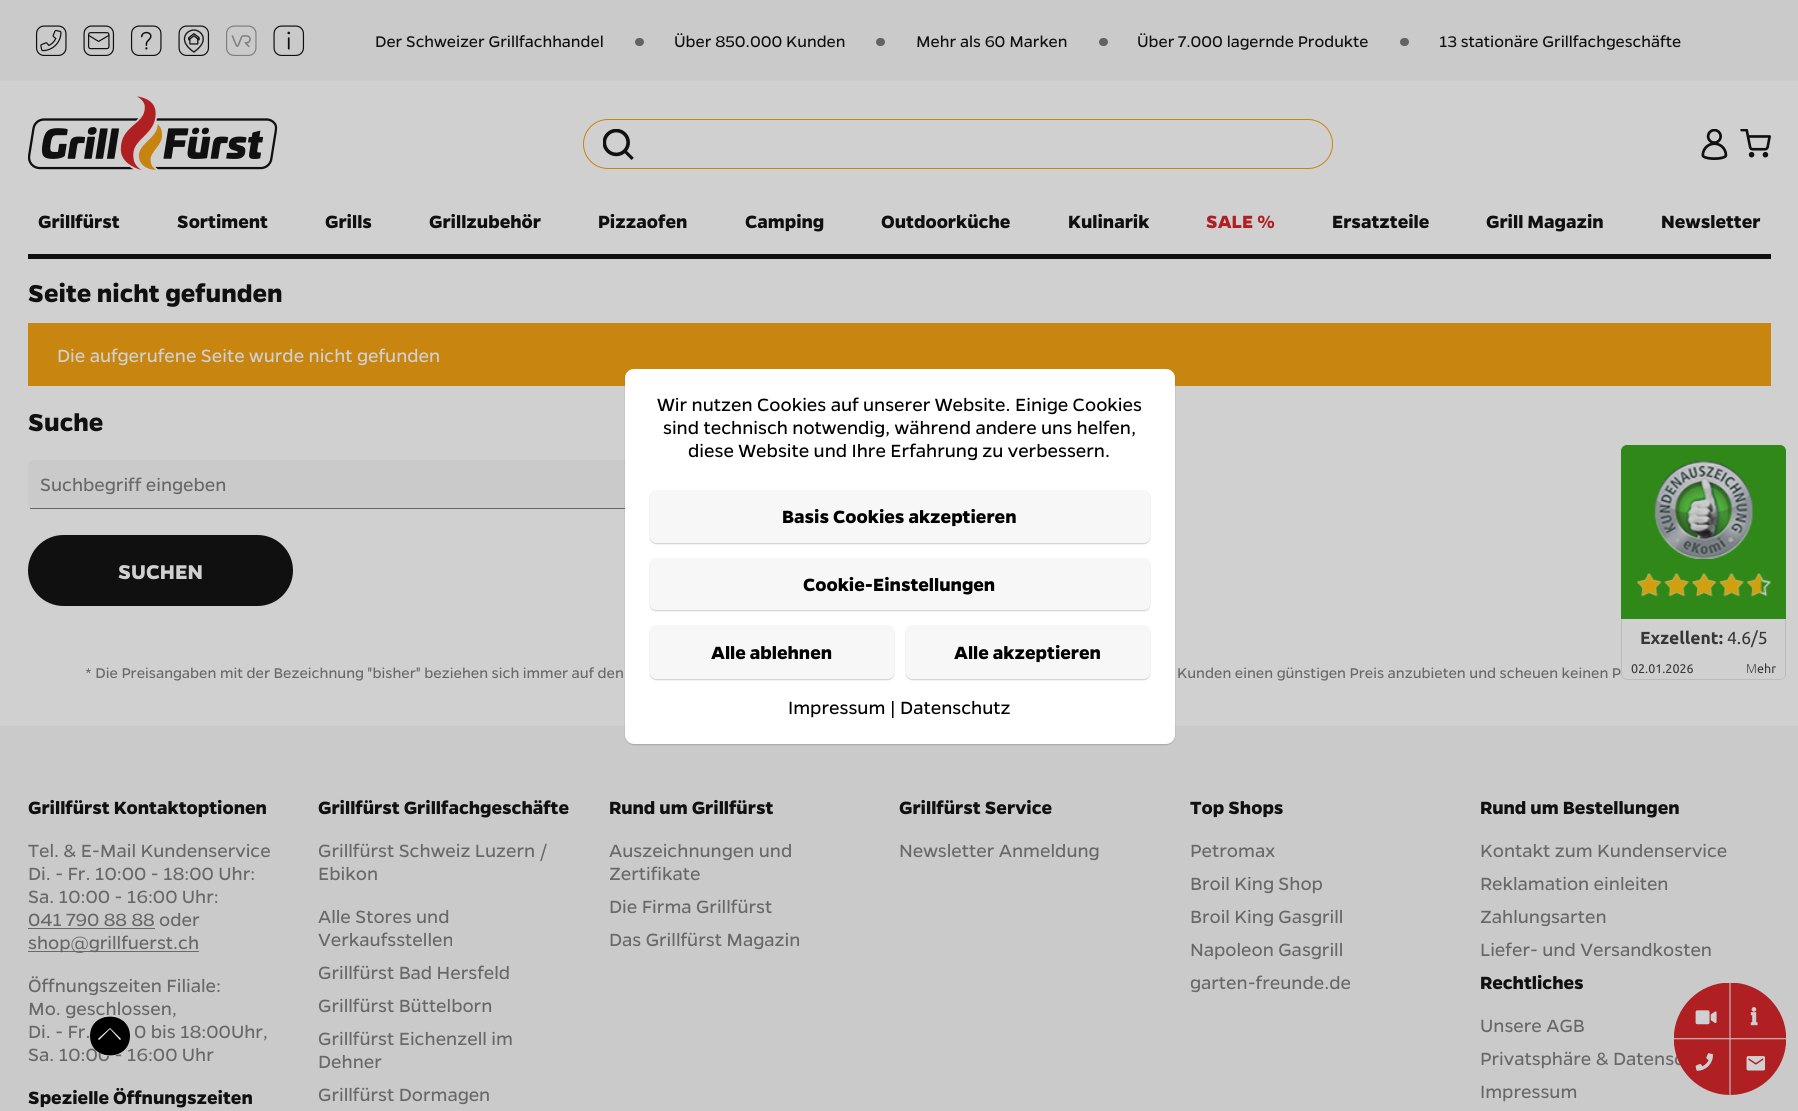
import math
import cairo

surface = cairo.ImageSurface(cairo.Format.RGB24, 1798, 1111)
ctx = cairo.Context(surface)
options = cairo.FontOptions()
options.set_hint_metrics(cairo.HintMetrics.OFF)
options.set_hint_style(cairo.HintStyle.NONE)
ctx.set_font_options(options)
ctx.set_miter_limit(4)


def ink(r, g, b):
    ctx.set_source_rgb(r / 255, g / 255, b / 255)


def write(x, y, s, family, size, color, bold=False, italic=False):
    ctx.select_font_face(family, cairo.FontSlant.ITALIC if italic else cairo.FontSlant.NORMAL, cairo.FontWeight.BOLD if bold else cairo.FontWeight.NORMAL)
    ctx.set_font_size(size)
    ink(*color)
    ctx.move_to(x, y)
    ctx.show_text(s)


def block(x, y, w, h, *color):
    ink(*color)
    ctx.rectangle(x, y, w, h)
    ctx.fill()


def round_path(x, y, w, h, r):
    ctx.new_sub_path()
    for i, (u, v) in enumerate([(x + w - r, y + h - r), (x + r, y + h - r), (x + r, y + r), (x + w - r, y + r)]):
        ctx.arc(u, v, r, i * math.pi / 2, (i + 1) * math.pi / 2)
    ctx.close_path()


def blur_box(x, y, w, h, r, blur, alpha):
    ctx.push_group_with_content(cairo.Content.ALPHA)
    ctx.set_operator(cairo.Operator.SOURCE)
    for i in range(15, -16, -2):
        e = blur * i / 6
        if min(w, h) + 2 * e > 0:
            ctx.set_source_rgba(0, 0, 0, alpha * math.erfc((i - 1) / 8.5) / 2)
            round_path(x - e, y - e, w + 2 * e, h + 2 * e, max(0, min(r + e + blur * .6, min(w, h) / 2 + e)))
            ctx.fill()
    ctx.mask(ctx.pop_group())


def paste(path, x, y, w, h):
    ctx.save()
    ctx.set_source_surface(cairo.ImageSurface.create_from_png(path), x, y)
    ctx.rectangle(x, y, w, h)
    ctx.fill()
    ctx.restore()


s1 = dict(family="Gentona", size=17.5, color=(16, 16, 16))
s2 = dict(family="Gentona", size=20, color=(16, 16, 16), bold=True)
s3 = dict(family="Gentona", size=20, color=(176, 31, 34), bold=True)
s4 = dict(family="Gentona", size=27.5, color=(16, 16, 16), bold=True)
s5 = dict(family="Gentona", size=20, color=(208, 208, 208))
s6 = dict(family="Gentona", size=20, color=(104, 104, 104))
s7 = dict(family="Gentona", size=22.5, color=(208, 208, 208), bold=True)
s8 = dict(family="Gentona", size=16, color=(104, 104, 104))
s9 = dict(family="Gentona", size=20, color=(0, 0, 0))
s10 = dict(family="Gentona", size=20, color=(0, 0, 0), bold=True)
s11 = dict(family="Ubuntu", size=17.5, color=(55, 55, 55), bold=True)
s12 = dict(family="Ubuntu", size=17.5, color=(55, 55, 55))
s13 = dict(family="Ubuntu", size=12.5, color=(55, 55, 55))
s14 = dict(family="Noto Sans Light", size=12.5, color=(55, 55, 55))

ink(208, 208, 208)
ctx.paint()
block(0, 0, 1798, 81, 202, 202, 202)
paste("pic1.png", 35, 25, 32, 31)
paste("pic2.png", 83, 25, 32, 31)
paste("pic3.png", 130, 25, 32, 31)
paste("pic4.png", 178, 25, 32, 31)
paste("pic5.png", 226, 25, 31, 31)
paste("pic6.png", 273, 25, 32, 31)
write(375, 47, "Der Schweizer Grillfachhandel", **s1)
ink(100, 99, 99)
round_path(635, 38, 9, 8, 4)
ctx.fill()
write(674, 47, "Über 850.000 Kunden", **s1)
ink(100, 99, 99)
round_path(876, 38, 9, 8, 4)
ctx.fill()
write(916, 47, "Mehr als 60 Marken", **s1)
ink(100, 99, 99)
round_path(1099, 38, 9, 8, 4)
ctx.fill()
write(1137, 47, "Über 7.000 lagernde Produkte", **s1)
ink(100, 99, 99)
round_path(1400, 38, 9, 8, 4)
ctx.fill()
write(1439, 47, "13 stationäre Grillfachgeschäfte", **s1)
paste("pic7.png", 28, 96, 250, 74)
round_path(583.5, 119.5, 749, 49, 24.5)
ink(200, 133, 16)
ctx.set_line_width(1)
ctx.stroke()
paste("pic8.png", 603, 129, 31, 31)
paste("pic9.png", 1701, 129, 27, 31)
paste("pic10.png", 1740, 129, 31, 29)
write(38, 228, "Grillfürst", **s2)
write(177, 228, "Sortiment", **s2)
write(325, 228, "Grills", **s2)
write(429, 228, "Grillzubehör", **s2)
write(598, 228, "Pizzaofen", **s2)
write(745, 228, "Camping", **s2)
write(881, 228, "Outdoorküche", **s2)
write(1068, 228, "Kulinarik", **s2)
write(1206, 228, "SALE %", **s3)
write(1332, 228, "Ersatzteile", **s2)
write(1486, 228, "Grill Magazin", **s2)
write(1661, 228, "Newsletter", **s2)
block(28, 254, 1743, 5, 16, 16, 16)
write(28, 302, "Seite nicht gefunden", **s4)
block(28, 323, 1743, 63, 200, 133, 16)
write(57, 362, "Die aufgerufene Seite wurde nicht gefunden", **s5)
write(28, 431, "Suche", **s4)
ink(202, 202, 202)
round_path(28, 460, 872, 49, 5)
ctx.fill()
block(30, 508, 595, 1, 102, 102, 102)
write(40, 491, "Suchbegriff eingeben", **s6)
ink(16, 16, 16)
round_path(28, 535, 265, 71, 35.5)
ctx.fill()
write(118, 579, "SUCHEN", **s7)
write(85, 678, "* Die Preisangaben mit der Bezeichnung \"bisher\" beziehen sich immer auf den", **s8)
write(1177, 678, "Kunden einen günstigen Preis anzubieten und scheuen keinen P", **s8)
block(0, 726, 1798, 385, 202, 202, 202)
write(28, 814, "Grillfürst Kontaktoptionen", **s2)
write(28, 857, "Tel. & E-Mail Kundenservice", **s6)
write(28, 880, "Di. - Fr. 10:00 - 18:00 Uhr:", **s6)
write(28, 903, "Sa. 10:00 - 16:00 Uhr:", **s6)
write(28, 926, "041 790 88 88 oder", **s6)
block(28, 928, 127, 1, 106, 106, 106)
block(28, 951, 171, 1, 106, 106, 106)
write(28, 949, "shop@grillfuerst.ch", **s6)
write(28, 992, "Öffnungszeiten Filiale:", **s6)
write(28, 1015, "Mo. geschlossen,", **s6)
write(28, 1038, "Di. - Fr.", **s6)
write(134, 1038, "0 bis 18:00Uhr,", **s6)
write(28, 1061, "Sa. 10:00 - 16:00 Uhr", **s6)
write(28, 1104, "Spezielle Öffnungszeiten", **s2)
write(318, 814, "Grillfürst Grillfachgeschäfte", **s2)
write(318, 857, "Grillfürst Schweiz Luzern /", **s6)
write(318, 880, "Ebikon", **s6)
write(318, 923, "Alle Stores und", **s6)
write(318, 946, "Verkaufsstellen", **s6)
write(318, 979, "Grillfürst Bad Hersfeld", **s6)
write(318, 1012, "Grillfürst Büttelborn", **s6)
write(318, 1045, "Grillfürst Eichenzell im", **s6)
write(318, 1068, "Dehner", **s6)
write(318, 1101, "Grillfürst Dormagen", **s6)
write(609, 814, "Rund um Grillfürst", **s2)
write(609, 857, "Auszeichnungen und", **s6)
write(609, 880, "Zertifikate", **s6)
write(609, 913, "Die Firma Grillfürst", **s6)
write(609, 946, "Das Grillfürst Magazin", **s6)
write(899, 814, "Grillfürst Service", **s2)
write(899, 857, "Newsletter Anmeldung", **s6)
write(1190, 814, "Top Shops", **s2)
write(1190, 857, "Petromax", **s6)
write(1190, 890, "Broil King Shop", **s6)
write(1190, 923, "Broil King Gasgrill", **s6)
write(1190, 956, "Napoleon Gasgrill", **s6)
write(1190, 989, "garten-freunde.de", **s6)
write(1480, 814, "Rund um Bestellungen", **s2)
write(1480, 857, "Kontakt zum Kundenservice", **s6)
write(1480, 890, "Reklamation einleiten", **s6)
write(1480, 923, "Zahlungsarten", **s6)
write(1480, 956, "Liefer- und Versandkosten", **s6)
write(1480, 989, "Rechtliches", **s2)
write(1480, 1032, "Unsere AGB", **s6)
write(1480, 1065, "Privatsphäre & Datensc", **s6)
write(1480, 1098, "Impressum", **s6)
ink(65, 65, 65)
blur_box(625, 370, 550, 375, 9, 0.5, 0.25)
ink(255, 255, 255)
round_path(625, 369, 550, 375, 9)
ctx.fill()
write(657, 411, "Wir nutzen Cookies auf unserer Website. Einige Cookies", **s9)
write(663, 434, "sind technisch notwendig, während andere uns helfen,", **s9)
write(688, 457, "diese Website und Ihre Erfahrung zu verbessern.", **s9)
ink(65, 65, 65)
blur_box(650, 491, 500, 53, 6, 0.5, 0.25)
ink(247, 247, 247)
round_path(650, 490, 500, 53, 6)
ctx.fill()
write(782, 523, "Basis Cookies akzeptieren", **s10)
ink(65, 65, 65)
blur_box(650, 559, 500, 52, 6, 0.5, 0.25)
ink(247, 247, 247)
round_path(650, 558, 500, 52, 6)
ctx.fill()
write(803, 591, "Cookie-Einstellungen", **s10)
ink(65, 65, 65)
blur_box(650, 626, 244, 54, 6, 0.5, 0.25)
ink(247, 247, 247)
round_path(650, 625, 244, 54, 6)
ctx.fill()
write(711, 659, "Alle ablehnen", **s10)
ink(65, 65, 65)
blur_box(906, 626, 244, 54, 6, 0.5, 0.25)
ink(247, 247, 247)
round_path(906, 625, 244, 54, 6)
ctx.fill()
write(954, 659, "Alle akzeptieren", **s10)
write(788, 714, "Impressum | Datenschutz", **s9)
ink(47, 136, 24)
ctx.new_path()
ctx.move_to(1627, 445.5)
ctx.line_to(1780, 445.5)
ctx.curve_to(1783, 445.5, 1785.5, 448, 1785.5, 451)
ctx.line_to(1785.5, 618.5)
ctx.line_to(1621.5, 618.5)
ctx.line_to(1621.5, 451)
ctx.curve_to(1621.5, 448, 1624, 445.5, 1627, 445.5)
ctx.close_path()
ctx.fill_preserve()
ctx.stroke()
paste("pic11.png", 1654, 461, 100, 98)
paste("pic12.png", 1637, 573, 135, 24)
paste("pic13.png", 1637, 572, 125, 25)
ink(187, 187, 187)
ctx.set_fill_rule(cairo.FillRule.EVEN_ODD)
ctx.new_path()
ctx.move_to(1621, 619)
ctx.line_to(1786, 619)
ctx.line_to(1786, 674)
ctx.curve_to(1786, 677, 1783, 680, 1780, 680)
ctx.line_to(1628, 680)
ctx.curve_to(1624, 680, 1621, 677, 1621, 674)
ctx.close_path()
ctx.move_to(1622, 619)
ctx.line_to(1785, 619)
ctx.line_to(1785, 674)
ctx.curve_to(1785, 677, 1783, 679, 1780, 679)
ctx.line_to(1628, 679)
ctx.curve_to(1625, 679, 1622, 677, 1622, 674)
ctx.close_path()
ctx.fill()
write(1640, 644, "Exzellent:", **s11)
write(1727, 644, "4.6/5", **s12)
write(1631, 673, "02.01.2026", **s13)
write(1746, 673, "M", **s14)
write(1757, 673, "ehr", **s13)
ink(255, 255, 255)
ctx.new_path()
ctx.arc(110, 1036, 20, 0, 2 * math.pi)
ctx.fill()
ink(0, 0, 0)
ctx.set_fill_rule(cairo.FillRule.WINDING)
ctx.new_path()
ctx.move_to(130, 1036)
ctx.curve_to(130, 1062, 90, 1062, 90, 1036)
ctx.curve_to(90, 1010, 130, 1010, 130, 1036)
ctx.close_path()
ctx.move_to(121, 1039)
ctx.line_to(110, 1028)
ctx.line_to(98, 1039)
ctx.line_to(99, 1040)
ctx.line_to(110, 1029)
ctx.line_to(120, 1040)
ctx.close_path()
ctx.fill()
paste("pic14.png", 1674, 983, 112, 112)
surface.write_to_png("screenshot.png")
